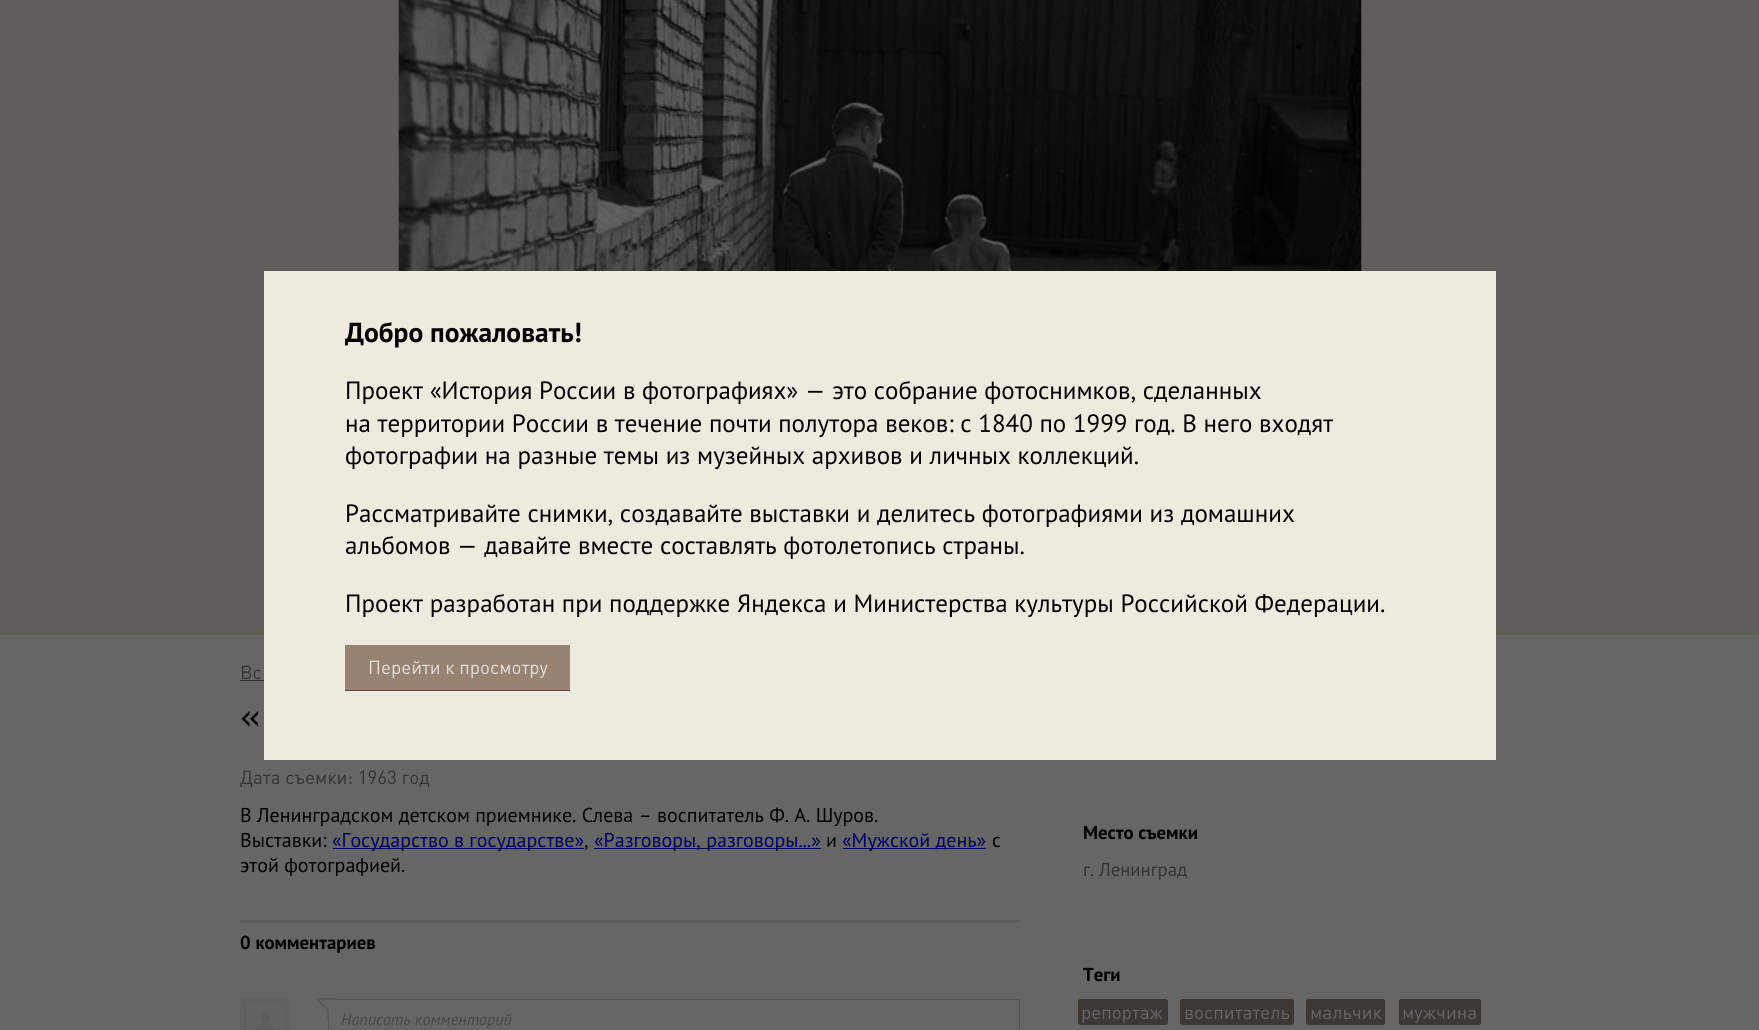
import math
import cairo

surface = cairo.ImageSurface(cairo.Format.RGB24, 1759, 1030)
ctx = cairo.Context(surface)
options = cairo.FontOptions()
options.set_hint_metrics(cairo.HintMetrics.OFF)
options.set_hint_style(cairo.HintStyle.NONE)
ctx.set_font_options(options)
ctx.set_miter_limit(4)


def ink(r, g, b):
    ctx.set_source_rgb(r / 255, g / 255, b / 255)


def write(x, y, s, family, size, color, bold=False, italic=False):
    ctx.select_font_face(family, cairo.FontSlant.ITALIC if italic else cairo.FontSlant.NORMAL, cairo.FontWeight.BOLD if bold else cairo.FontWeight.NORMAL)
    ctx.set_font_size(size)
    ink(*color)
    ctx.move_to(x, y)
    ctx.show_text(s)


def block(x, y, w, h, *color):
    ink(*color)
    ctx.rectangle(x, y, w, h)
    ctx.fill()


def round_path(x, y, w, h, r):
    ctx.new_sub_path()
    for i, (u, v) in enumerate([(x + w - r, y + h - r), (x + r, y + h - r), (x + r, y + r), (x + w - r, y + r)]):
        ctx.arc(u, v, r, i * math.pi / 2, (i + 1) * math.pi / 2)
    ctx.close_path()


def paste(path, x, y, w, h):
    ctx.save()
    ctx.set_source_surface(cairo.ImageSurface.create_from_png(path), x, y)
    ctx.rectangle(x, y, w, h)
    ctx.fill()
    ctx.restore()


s1 = dict(family="PT Sans", size=27.5, color=(0, 0, 0), bold=True)
s2 = dict(family="PT Sans", size=25, color=(0, 0, 0))
s3 = dict(family="DIN", size=18.75, color=(229, 224, 220))
s4 = dict(family="DIN", size=18.75, color=(51, 51, 51))
s5 = dict(family="DIN", size=38, color=(0, 0, 0))
s6 = dict(family="PT Sans", size=20, color=(0, 0, 0))
s7 = dict(family="PT Sans", size=20, color=(0, 0, 95))
s8 = dict(family="PT Sans", size=18.75, color=(0, 0, 0), bold=True)
s9 = dict(family="PT Sans", size=16.25, color=(71, 70, 67), italic=True)
s10 = dict(family="PT Sans", size=18.75, color=(51, 51, 51))
s11 = dict(family="DIN", size=18.75, color=(102, 102, 102))

ink(95, 94, 90)
ctx.paint()
block(0, 635, 1759, 395, 102, 102, 102)
block(264, 271, 1232, 489, 237, 234, 223)
write(345, 342, "Добро пожаловать!", **s1)
write(345, 399, "Проект «История России в фотографиях» — это собрание фотоснимков, сделанных", **s2)
write(345, 432, "на территории России в течение почти полутора веков: с 1840 по 1999 год. В него входят", **s2)
write(345, 464, "фотографии на разные темы из музейных архивов и личных коллекций.", **s2)
write(345, 522, "Рассматривайте снимки, создавайте выставки и делитесь фотографиями из домашних", **s2)
write(345, 554, "альбомов — давайте вместе составлять фотолетопись страны.", **s2)
write(345, 612, "Проект разработан при поддержке Яндекса и Министерства культуры Российской Федерации.", **s2)
block(345, 645, 225, 45, 151, 131, 114)
block(345, 690, 225, 1, 92, 69, 57)
write(368, 674, "Перейти к просмотру", **s3)
paste("pic1.png", 398, 0, 964, 271)
write(240, 679, "Вс", **s4)
block(240, 680, 24, 1, 51, 51, 51)
write(240, 729, "«", **s5)
write(240, 784, "Дата съемки: 1963 год", **s4)
write(240, 822, "В Ленинградском детском приемнике. Слева – воспитатель Ф. А. Шуров.", **s6)
write(240, 847, "Выставки:", **s6)
block(333, 848, 251, 1, 0, 0, 95)
write(332, 847, "«Государство в государстве»", **s7)
block(594, 848, 227, 1, 0, 0, 95)
write(594, 847, "«Разговоры, разговоры...»", **s7)
write(826, 847, "и", **s6)
block(843, 848, 143, 1, 0, 0, 95)
write(842, 847, "«Мужской день»", **s7)
write(992, 847, "с", **s6)
write(584, 847, ",", **s6)
write(240, 872, "этой фотографией.", **s6)
block(240, 920, 780, 3, 92, 92, 92)
write(240, 949, "0 комментариев", **s8)
paste("pic2.png", 240, 998, 50, 32)
ctx.rectangle(328.5, 999.5, 691, 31)
ink(84, 84, 84)
ctx.set_line_width(1)
ctx.stroke()
paste("pic3.png", 315, 998, 22, 22)
write(341, 1025, "Написать комментарий", **s9)
write(1083, 839, "Место съемки", **s8)
write(1083, 876, "г. Ленинград", **s10)
write(1083, 981, "Теги", **s8)
ink(60, 55, 50)
round_path(1078, 999, 90, 26, 2.5)
ctx.fill()
write(1081, 1019, "репортаж", **s11)
ink(60, 55, 50)
round_path(1180, 999, 114, 26, 2.5)
ctx.fill()
write(1184, 1019, "воспитатель", **s11)
ink(60, 55, 50)
round_path(1306, 999, 79, 26, 2.5)
ctx.fill()
write(1310, 1019, "мальчик", **s11)
ink(60, 55, 50)
round_path(1399, 999, 82, 26, 2.5)
ctx.fill()
write(1402, 1019, "мужчина", **s11)
surface.write_to_png("screenshot.png")
